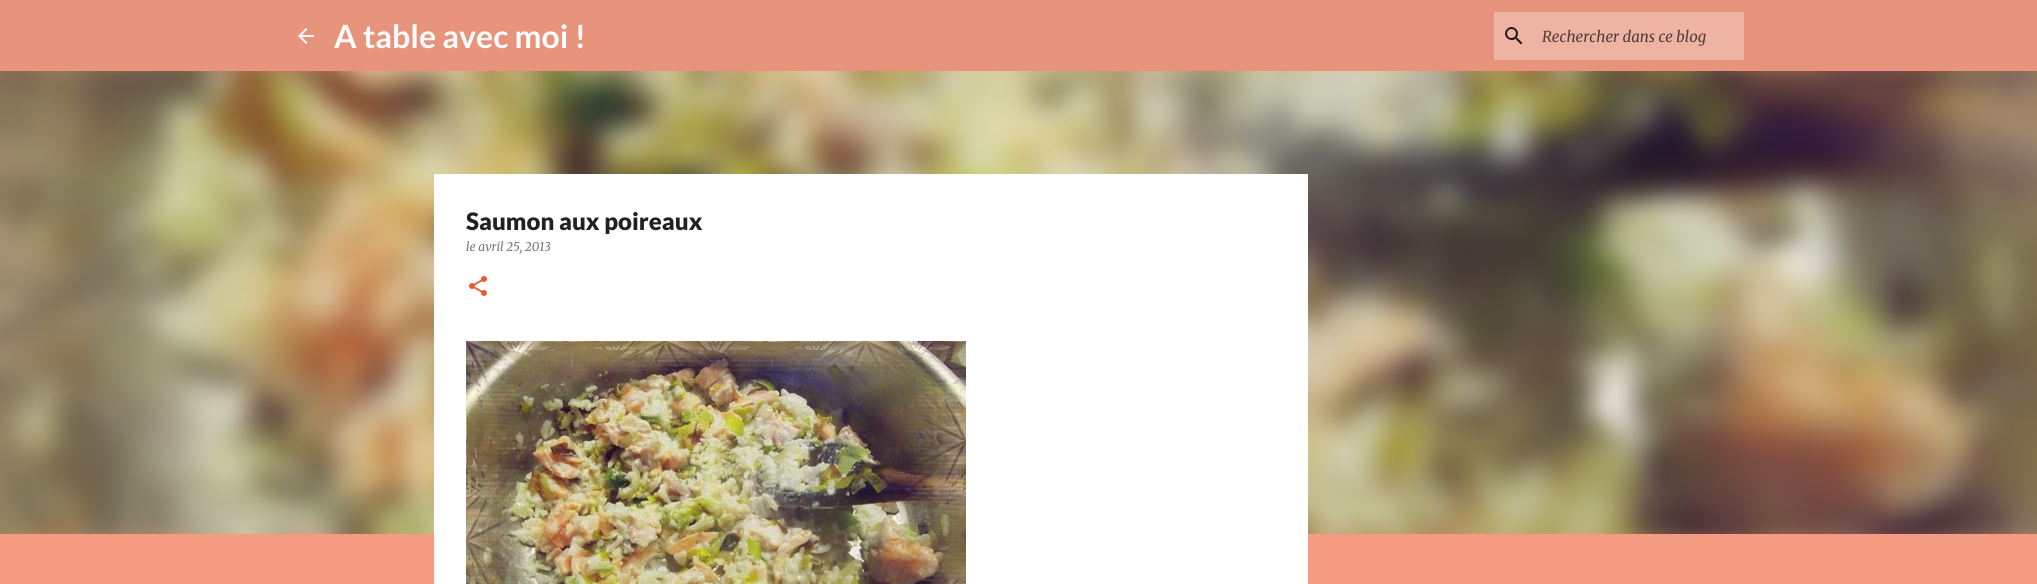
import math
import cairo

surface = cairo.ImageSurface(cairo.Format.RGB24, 2037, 584)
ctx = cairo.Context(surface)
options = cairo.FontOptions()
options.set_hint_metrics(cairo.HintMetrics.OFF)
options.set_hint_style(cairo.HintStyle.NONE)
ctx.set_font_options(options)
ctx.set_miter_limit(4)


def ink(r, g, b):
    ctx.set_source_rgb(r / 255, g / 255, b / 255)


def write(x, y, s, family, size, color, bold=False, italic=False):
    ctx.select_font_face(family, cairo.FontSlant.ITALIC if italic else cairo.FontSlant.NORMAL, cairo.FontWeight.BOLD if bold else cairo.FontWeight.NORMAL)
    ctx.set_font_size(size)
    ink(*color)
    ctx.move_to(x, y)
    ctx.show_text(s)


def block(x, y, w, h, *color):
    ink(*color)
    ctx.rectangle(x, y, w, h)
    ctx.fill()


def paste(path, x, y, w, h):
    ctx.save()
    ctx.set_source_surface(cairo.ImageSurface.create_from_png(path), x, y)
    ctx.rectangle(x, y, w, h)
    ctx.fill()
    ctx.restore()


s1 = dict(family="Lato", size=32, color=(255, 255, 255), bold=True)
s2 = dict(family="Merriweather", size=15, color=(81, 61, 55), italic=True)
s3 = dict(family="Lato Black", size=24, color=(33, 33, 33))
s4 = dict(family="Merriweather", size=12, color=(117, 117, 117), italic=True)

ink(245, 155, 130)
ctx.paint()
block(0, 0, 2037, 71, 232, 147, 123)
paste("pic1.png", 298, 28, 16, 16)
write(334, 48, "A table avec moi !", **s1)
block(1494, 12, 250, 48, 239, 179, 163)
paste("pic2.png", 1505, 27, 18, 18)
write(1542, 42, "Rechercher dans ce blog", **s2)
paste("pic5.png", 0, 71, 2037, 463)
block(434, 174, 874, 410, 255, 255, 255)
write(466, 230, "Saumon aux poireaux", **s3)
write(466, 251, "le avril 25, 2013", **s4)
paste("pic3.png", 469, 276, 18, 20)
paste("pic4.png", 466, 341, 500, 243)
surface.write_to_png("screenshot.png")
